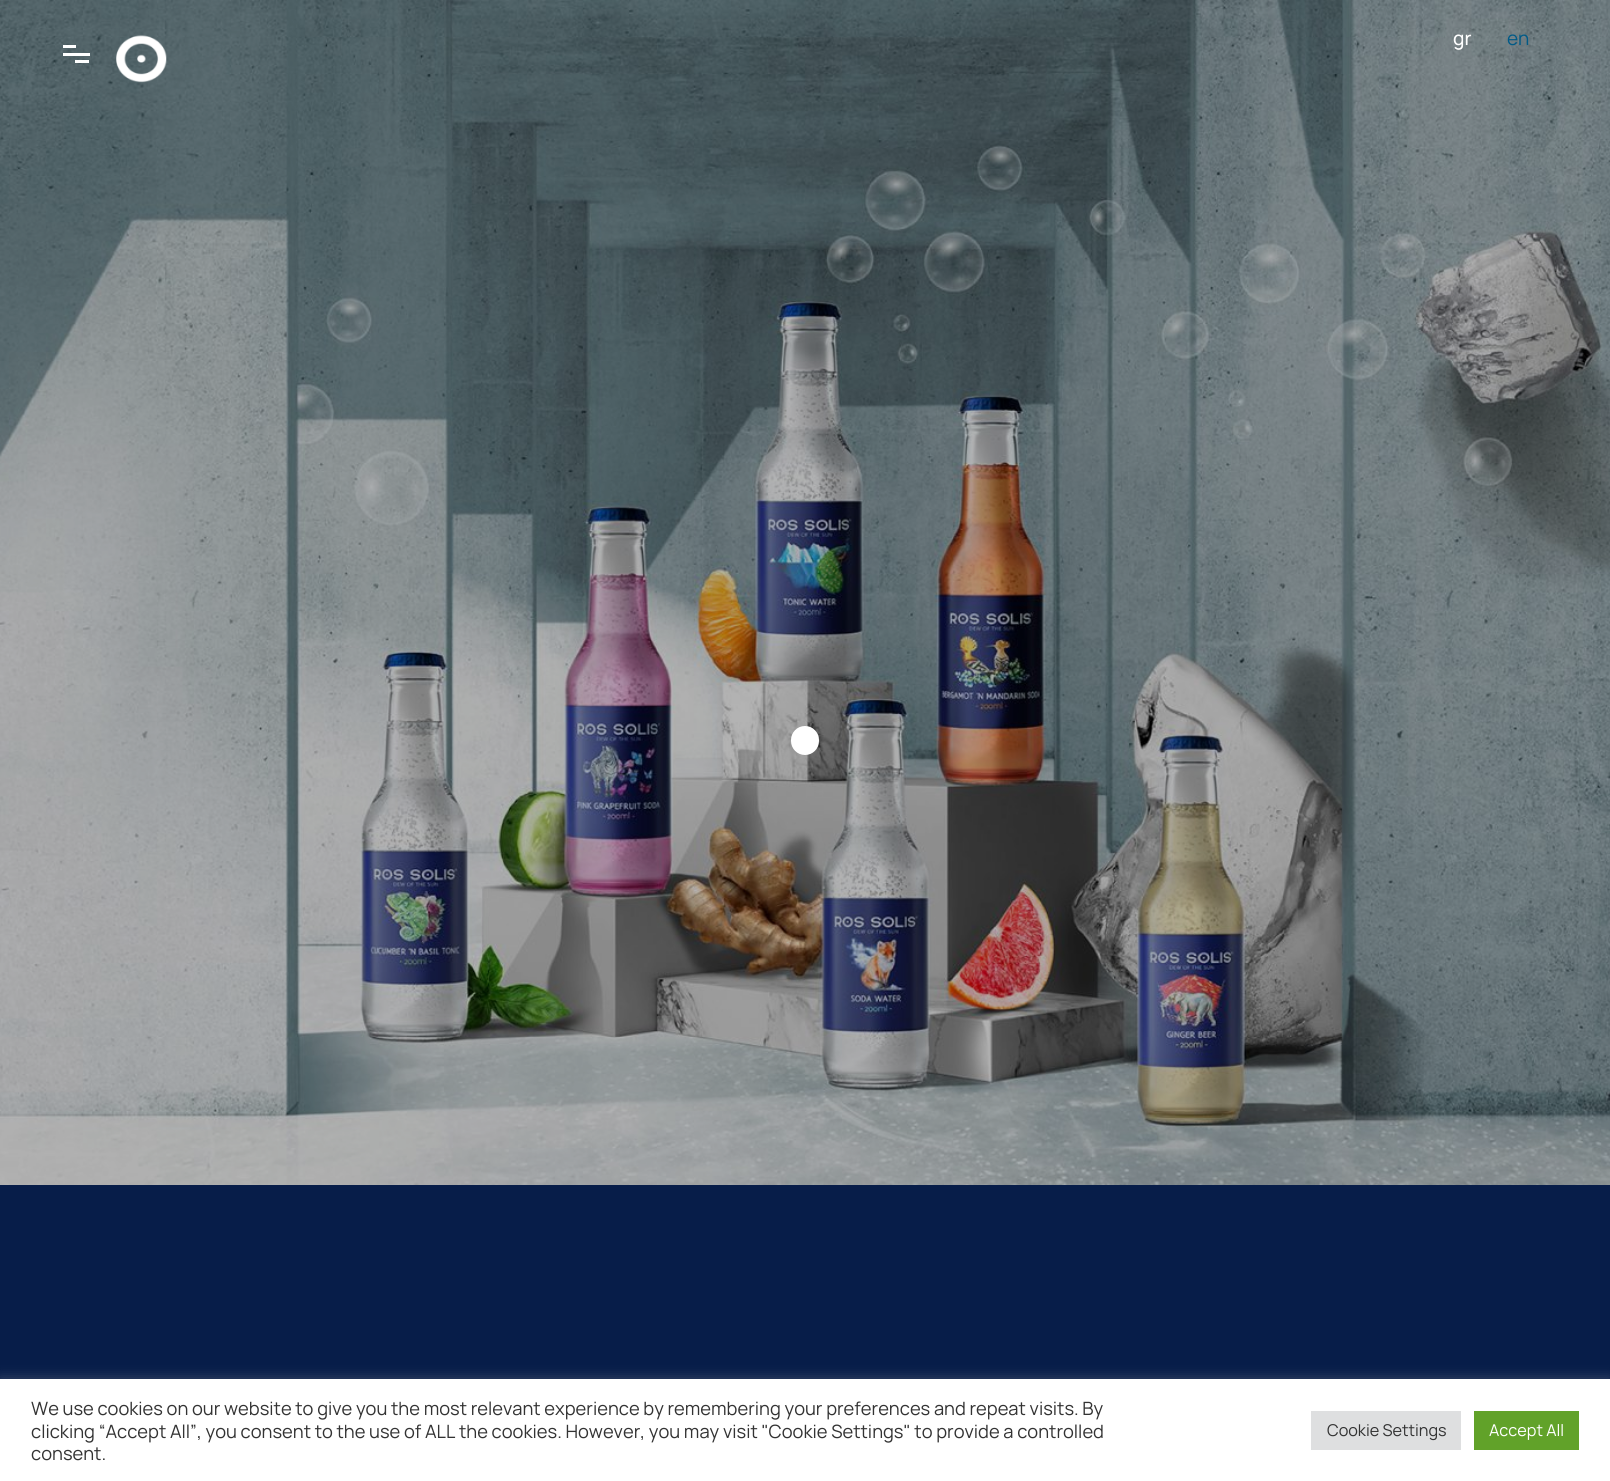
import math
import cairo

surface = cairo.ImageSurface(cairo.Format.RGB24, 1610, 1481)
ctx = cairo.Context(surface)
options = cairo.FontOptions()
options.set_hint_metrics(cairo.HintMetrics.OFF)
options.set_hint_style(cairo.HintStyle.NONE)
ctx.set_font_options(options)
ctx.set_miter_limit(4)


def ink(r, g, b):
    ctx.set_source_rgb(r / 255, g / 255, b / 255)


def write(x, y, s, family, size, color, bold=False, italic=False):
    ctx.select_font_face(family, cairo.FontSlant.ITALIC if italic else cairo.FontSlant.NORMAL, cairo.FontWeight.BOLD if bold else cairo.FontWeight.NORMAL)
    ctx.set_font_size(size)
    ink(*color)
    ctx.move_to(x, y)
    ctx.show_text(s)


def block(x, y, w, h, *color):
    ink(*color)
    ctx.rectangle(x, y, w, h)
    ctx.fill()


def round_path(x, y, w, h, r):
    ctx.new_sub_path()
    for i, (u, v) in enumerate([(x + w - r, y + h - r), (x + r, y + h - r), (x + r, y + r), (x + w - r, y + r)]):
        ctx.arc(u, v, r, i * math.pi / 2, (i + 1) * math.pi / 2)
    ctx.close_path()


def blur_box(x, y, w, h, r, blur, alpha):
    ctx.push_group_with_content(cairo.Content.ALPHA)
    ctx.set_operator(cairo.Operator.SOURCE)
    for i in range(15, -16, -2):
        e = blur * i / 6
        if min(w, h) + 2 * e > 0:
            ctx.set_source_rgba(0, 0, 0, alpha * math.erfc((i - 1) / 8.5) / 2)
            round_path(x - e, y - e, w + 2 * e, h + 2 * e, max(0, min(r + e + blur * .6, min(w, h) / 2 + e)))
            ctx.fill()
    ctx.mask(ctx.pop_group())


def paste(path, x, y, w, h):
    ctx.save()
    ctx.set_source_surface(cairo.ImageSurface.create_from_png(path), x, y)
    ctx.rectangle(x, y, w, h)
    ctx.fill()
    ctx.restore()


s1 = dict(family="Manrope Medium", size=19, color=(255, 255, 255))
s2 = dict(family="Manrope", size=19, color=(0, 90, 135))
s3 = dict(family="Manrope", size=18.33, color=(51, 51, 51))
s4 = dict(family="Manrope", size=16.25, color=(51, 51, 51))
s5 = dict(family="Manrope", size=16.25, color=(255, 255, 255))

ink(7, 29, 73)
ctx.paint()
paste("pic1.png", 0, 0, 1610, 1185)
block(63, 45, 13, 3, 255, 255, 255)
block(63, 53, 27, 3, 255, 255, 255)
block(75, 60, 14, 3, 255, 255, 255)
paste("pic2.png", 116, 35, 51, 48)
write(1453, 45, "gr", **s1)
write(1507, 45, "en", **s2)
ink(255, 255, 255)
round_path(791, 726, 28, 29, 14)
ctx.fill()
ink(172, 171, 171)
blur_box(0, 1378, 1610, 102, 0, 6, 0.3)
block(0, 1379, 1610, 102, 255, 255, 255)
write(31, 1415, "We use cookies on our website to give you the most relevant experience by remembering your preferences and repeat visits. By", **s3)
write(31, 1438, "clicking “Accept All”, you consent to the use of ALL the cookies. However, you may visit \"Cookie Settings\" to provide a controlled", **s3)
write(31, 1460, "consent.", **s3)
block(1311, 1411, 150, 39, 222, 223, 224)
write(1327, 1436, "Cookie Settings", **s4)
block(1474, 1411, 105, 39, 97, 162, 41)
write(1489, 1436, "Accept All", **s5)
surface.write_to_png("screenshot.png")
